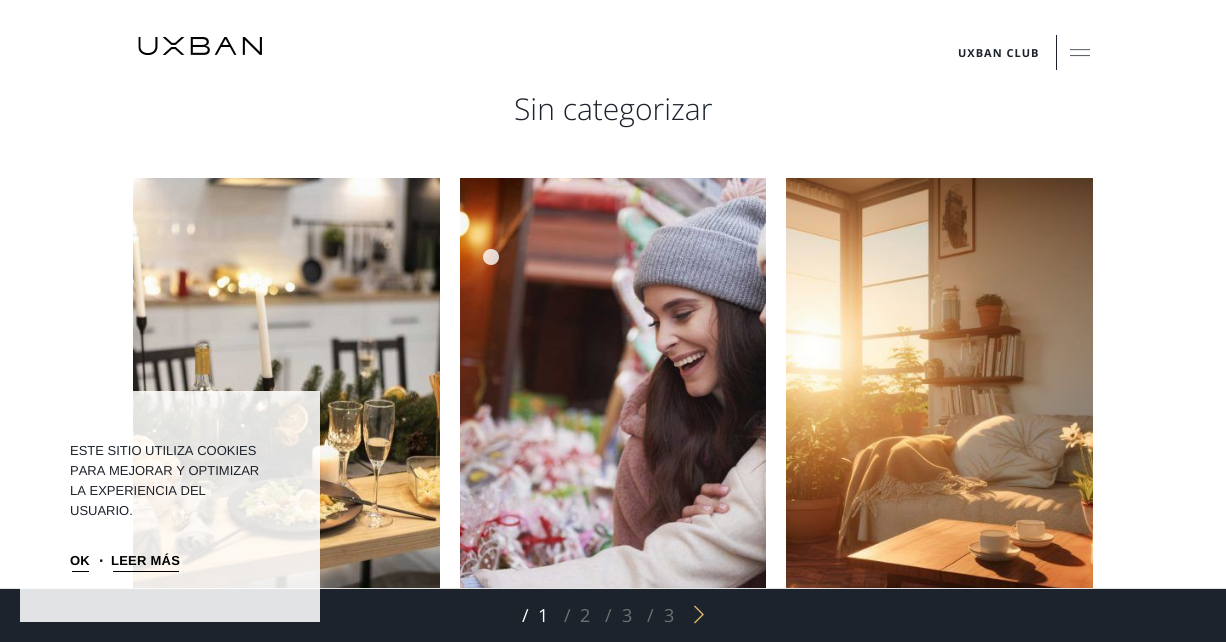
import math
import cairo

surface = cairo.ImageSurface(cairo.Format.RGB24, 1226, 642)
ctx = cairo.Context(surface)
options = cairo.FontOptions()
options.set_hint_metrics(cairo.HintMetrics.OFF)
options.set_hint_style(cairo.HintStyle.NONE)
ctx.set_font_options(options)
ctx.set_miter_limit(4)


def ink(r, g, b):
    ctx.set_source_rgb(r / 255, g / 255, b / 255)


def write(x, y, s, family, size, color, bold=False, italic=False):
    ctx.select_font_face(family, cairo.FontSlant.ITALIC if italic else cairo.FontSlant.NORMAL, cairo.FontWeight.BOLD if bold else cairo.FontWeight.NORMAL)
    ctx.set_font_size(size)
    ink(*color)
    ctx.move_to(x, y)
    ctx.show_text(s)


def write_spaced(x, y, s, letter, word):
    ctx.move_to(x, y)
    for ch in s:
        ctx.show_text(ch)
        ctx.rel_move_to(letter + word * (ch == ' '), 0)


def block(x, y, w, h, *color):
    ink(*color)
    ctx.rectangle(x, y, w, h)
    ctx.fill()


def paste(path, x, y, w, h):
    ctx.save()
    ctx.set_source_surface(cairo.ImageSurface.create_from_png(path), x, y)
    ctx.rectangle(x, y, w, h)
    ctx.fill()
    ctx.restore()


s1 = dict(family="Open Sans Light", size=30, color=(29, 35, 44))
s2 = dict(family="Open Sans", size=18, color=(255, 255, 255))
s3 = dict(family="Open Sans", size=18, color=(112, 112, 112))
s4 = dict(family="Liberation Sans", size=13, color=(29, 35, 44))

ink(255, 255, 255)
ctx.paint()
paste("pic4.png", 460, 178, 306, 410)
ctx.set_source_rgba(1, 1, 1, 0.8)
ctx.arc(491, 257, 8, 0, 2 * math.pi)
ctx.fill()
paste("pic1.png", 138, 37, 124, 18)
block(1056, 35, 1, 35, 29, 35, 44)
ctx.select_font_face("Open Sans", cairo.FontSlant.NORMAL, cairo.FontWeight.BOLD)
ctx.set_font_size(11)
write_spaced(958, 57, "UXBAN CLUB", 1, 0)
paste("pic2.png", 1070, 49, 20, 8)
write(514, 120, "Sin categorizar", **s1)
paste("pic3.png", 133, 178, 307, 410)
paste("pic5.png", 786, 178, 307, 410)
block(0, 589, 1226, 53, 29, 35, 44)
block(0, 588, 1226, 1, 226, 226, 226)
write(522, 622, "/", **s2)
write(538, 622, "1", **s2)
write(564, 622, "/", **s3)
write(580, 622, "2", **s3)
write(605, 622, "/", **s3)
write(622, 622, "3", **s3)
write(647, 622, "/", **s3)
write(664, 622, "3", **s3)
ink(216, 180, 108)
ctx.new_path()
ctx.move_to(695, 605.5)
ctx.line_to(694, 606.5)
ctx.line_to(702, 614.5)
ctx.line_to(694, 622.5)
ctx.line_to(695, 623.5)
ctx.line_to(704, 614.5)
ctx.close_path()
ctx.fill()
ctx.set_source_rgba(1, 1, 1, 0.87)
ctx.rectangle(20, 391, 300, 231)
ctx.fill()
write(70, 455, "ESTE SITIO UTILIZA COOKIES", **s4)
write(70, 475, "PARA MEJORAR Y OPTIMIZAR", **s4)
write(70, 495, "LA EXPERIENCIA DEL", **s4)
write(70, 515, "USUARIO.", **s4)
ctx.set_source_rgba(1, 1, 1, 0.5)
ctx.new_path()
ctx.move_to(300.5, 501)
ctx.line_to(302, 502.5)
ctx.line_to(291.5, 513)
ctx.line_to(290, 511.5)
ctx.close_path()
ctx.fill()
ctx.new_path()
ctx.move_to(290, 502.5)
ctx.line_to(291.5, 501)
ctx.line_to(302, 511.5)
ctx.line_to(300.5, 513)
ctx.close_path()
ctx.fill()
block(72, 571, 17, 1, 0, 0, 0)
ctx.select_font_face("Liberation Sans", cairo.FontSlant.NORMAL, cairo.FontWeight.BOLD)
write_spaced(70, 565, "OK", 0.25, 0)
block(113, 571, 66, 1, 0, 0, 0)
ctx.set_font_size(16)
write_spaced(99, 566, "·", 0.25, 0)
ctx.set_font_size(13)
write_spaced(111, 565, "LEER MÁS", 0.25, 0)
surface.write_to_png("screenshot.png")
